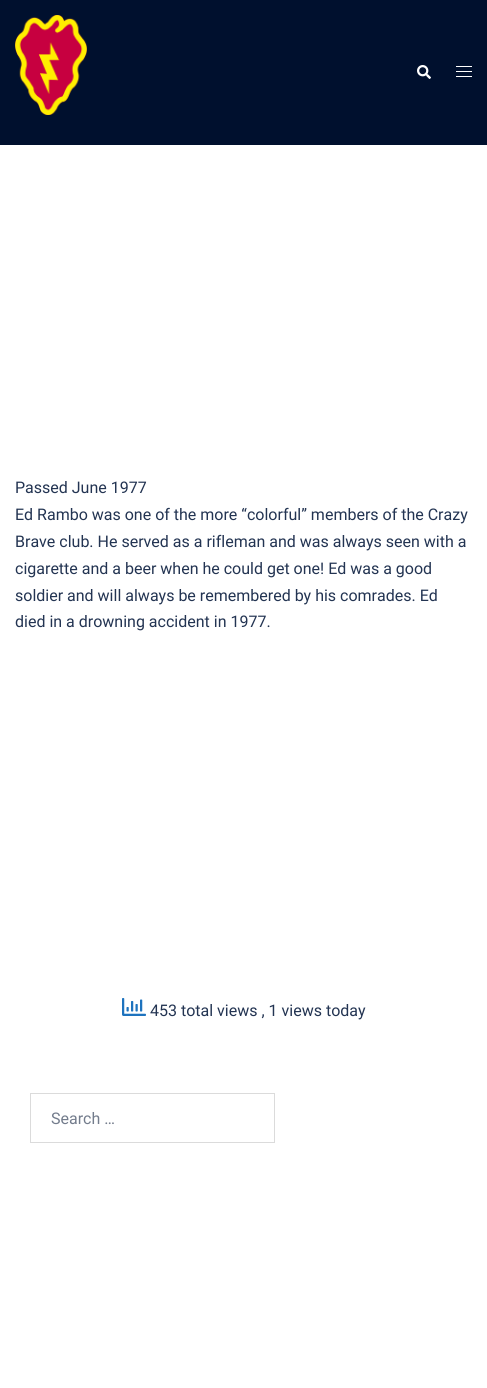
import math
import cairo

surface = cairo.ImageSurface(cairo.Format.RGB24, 487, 1388)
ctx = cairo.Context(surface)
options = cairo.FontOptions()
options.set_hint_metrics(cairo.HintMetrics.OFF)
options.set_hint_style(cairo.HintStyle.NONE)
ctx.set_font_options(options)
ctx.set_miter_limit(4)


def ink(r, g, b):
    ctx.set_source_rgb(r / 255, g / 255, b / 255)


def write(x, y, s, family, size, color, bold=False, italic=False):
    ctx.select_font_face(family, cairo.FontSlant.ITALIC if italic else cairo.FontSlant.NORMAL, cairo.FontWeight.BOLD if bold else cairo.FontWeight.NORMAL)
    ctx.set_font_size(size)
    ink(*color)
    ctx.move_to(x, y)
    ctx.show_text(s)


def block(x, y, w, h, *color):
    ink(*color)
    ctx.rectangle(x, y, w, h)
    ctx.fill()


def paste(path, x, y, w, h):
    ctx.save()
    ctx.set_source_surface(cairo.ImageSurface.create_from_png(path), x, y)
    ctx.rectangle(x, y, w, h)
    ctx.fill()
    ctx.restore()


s1 = dict(family="Roboto", size=16, color=(35, 52, 82))
s2 = dict(family="Roboto", size=16, color=(115, 124, 140))

ink(255, 255, 255)
ctx.paint()
block(0, 0, 487, 145, 0, 16, 46)
paste("pic1.png", 15, 15, 72, 100)
paste("pic2.png", 417, 65, 14, 14)
block(456, 66, 16, 1, 255, 255, 255)
block(456, 71, 16, 1, 255, 255, 255)
block(456, 76, 16, 1, 255, 255, 255)
write(15, 493, "Passed June 1977", **s1)
write(15, 520, "Ed Rambo was one of the more “colorful” members of the Crazy", **s1)
write(15, 547, "Brave club. He served as a rifleman and was always seen with a", **s1)
write(15, 574, "cigarette and a beer when he could get one! Ed was a good", **s1)
write(15, 601, "soldier and will always be remembered by his comrades. Ed", **s1)
write(15, 627, "died in a drowning accident in 1977.", **s1)
paste("pic3.png", 122, 998, 24, 18)
write(150, 1016, "453 total views , 1 views today", **s1)
ctx.rectangle(30.5, 1093.5, 244, 49)
ink(219, 219, 219)
ctx.set_line_width(1)
ctx.stroke()
write(51, 1124, "Search …", **s2)
surface.write_to_png("screenshot.png")
